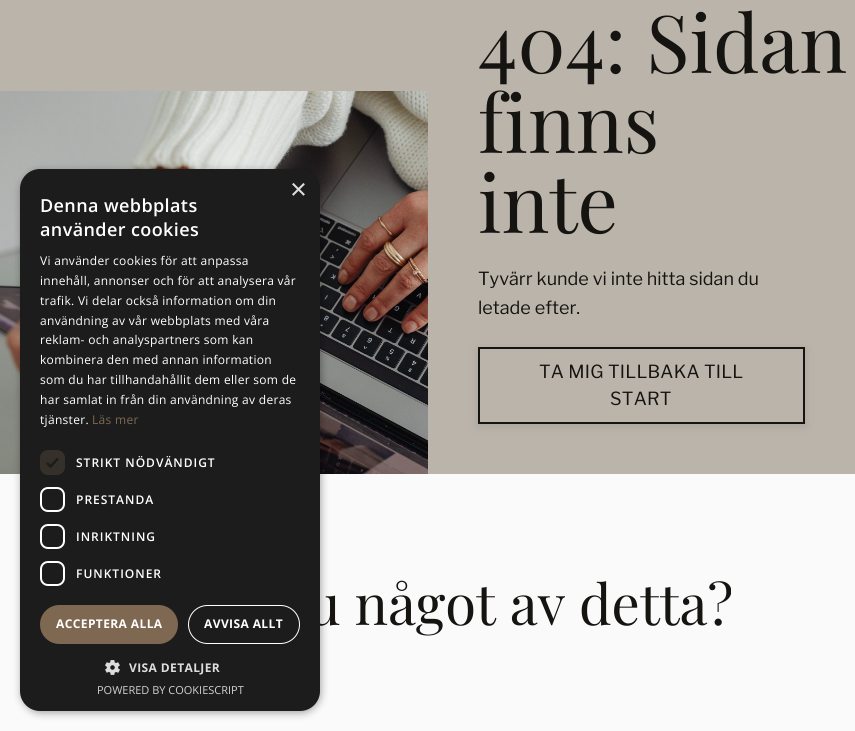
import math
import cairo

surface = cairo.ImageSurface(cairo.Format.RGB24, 855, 731)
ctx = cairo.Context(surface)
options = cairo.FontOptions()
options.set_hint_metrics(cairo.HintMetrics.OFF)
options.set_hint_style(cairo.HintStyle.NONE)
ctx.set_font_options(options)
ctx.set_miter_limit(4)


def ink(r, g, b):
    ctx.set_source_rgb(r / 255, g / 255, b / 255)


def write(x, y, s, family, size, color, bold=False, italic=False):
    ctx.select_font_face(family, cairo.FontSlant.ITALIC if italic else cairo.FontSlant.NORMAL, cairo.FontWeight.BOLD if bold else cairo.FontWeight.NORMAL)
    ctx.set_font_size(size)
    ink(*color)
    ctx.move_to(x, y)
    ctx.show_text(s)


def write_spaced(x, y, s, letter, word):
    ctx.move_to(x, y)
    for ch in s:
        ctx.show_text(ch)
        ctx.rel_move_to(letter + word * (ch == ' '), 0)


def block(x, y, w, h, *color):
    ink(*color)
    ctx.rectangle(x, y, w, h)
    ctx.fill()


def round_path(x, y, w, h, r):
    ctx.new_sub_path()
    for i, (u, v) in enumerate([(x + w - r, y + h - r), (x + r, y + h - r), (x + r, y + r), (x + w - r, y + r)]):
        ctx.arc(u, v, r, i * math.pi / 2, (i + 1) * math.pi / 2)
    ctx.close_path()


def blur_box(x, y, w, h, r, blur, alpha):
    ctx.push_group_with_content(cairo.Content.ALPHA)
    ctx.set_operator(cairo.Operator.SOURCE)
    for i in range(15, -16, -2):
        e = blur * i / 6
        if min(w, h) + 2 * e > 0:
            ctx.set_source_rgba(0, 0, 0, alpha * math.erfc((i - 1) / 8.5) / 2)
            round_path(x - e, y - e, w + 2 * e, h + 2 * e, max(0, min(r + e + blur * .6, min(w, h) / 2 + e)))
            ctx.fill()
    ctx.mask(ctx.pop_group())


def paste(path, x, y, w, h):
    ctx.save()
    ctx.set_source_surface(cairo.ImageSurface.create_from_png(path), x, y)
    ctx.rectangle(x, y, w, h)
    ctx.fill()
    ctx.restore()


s1 = dict(family="Playfair Display", size=56, color=(21, 20, 17))
s2 = dict(family="Liberation Sans", size=29, color=(221, 221, 221))
s3 = dict(family="Open Sans", size=11, color=(210, 210, 210))
s4 = dict(family="Playfair Display", size=80, color=(21, 20, 17))
s5 = dict(family="Libre Franklin", size=18, color=(21, 20, 17))

ink(186, 180, 171)
ctx.paint()
paste("pic2.png", 0, 91, 428, 383)
block(0, 474, 855, 257, 250, 250, 250)
ink(0, 0, 0)
blur_box(21, 171, 300, 542, 20, 4, 0.35)
write(308, 625, "u något av detta?", **s1)
ink(28, 28, 28)
round_path(20, 169, 300, 542, 20)
ctx.fill()
write(290, 199, "×", **s2)
ctx.select_font_face("Open Sans SemiBold")
ctx.set_font_size(18)
ink(255, 255, 255)
write_spaced(40, 212, "Denna webbplats", 0.4, 0)
write_spaced(40, 236, "använder cookies", 0.4, 0)
ctx.select_font_face("Open Sans")
ctx.set_font_size(12)
write_spaced(40, 265, "Vi använder cookies för att anpassa", 0.3, 0)
write_spaced(40, 285, "innehåll, annonser och för att analysera vår", 0.3, 0)
write_spaced(40, 305, "trafik. Vi delar också information om din", 0.3, 0)
write_spaced(40, 325, "användning av vår webbplats med våra", 0.3, 0)
write_spaced(40, 344, "reklam- och analyspartners som kan", 0.3, 0)
write_spaced(40, 364, "kombinera den med annan information", 0.3, 0)
write_spaced(40, 384, "som du har tillhandahållit dem eller som de", 0.3, 0)
write_spaced(40, 404, "har samlat in från din användning av deras", 0.3, 0)
write_spaced(40, 424, "tjänster.", 0.3, 0)
ink(126, 104, 82)
write_spaced(92, 424, "Läs mer", 0.3, 0)
ink(53, 48, 42)
round_path(40, 450, 25, 25, 8)
ctx.fill()
ctx.new_path()
ctx.move_to(47, 463)
ctx.line_to(50.5, 466.5)
ctx.line_to(58, 458.5)
ink(28, 28, 28)
ctx.set_line_width(2.6)
ctx.stroke()
ctx.select_font_face("Open Sans SemiBold")
ink(255, 255, 255)
write_spaced(76, 467, "STRIKT NÖDVÄNDIGT", 1, 0)
round_path(41, 488, 23, 23, 7)
ctx.set_line_width(2)
ctx.stroke()
write_spaced(76, 504, "PRESTANDA", 1, 0)
round_path(41, 525, 23, 23, 7)
ctx.stroke()
write_spaced(76, 541, "INRIKTNING", 1, 0)
round_path(41, 562, 23, 23, 7)
ctx.stroke()
write_spaced(76, 578, "FUNKTIONER", 1, 0)
ink(126, 104, 82)
round_path(40, 605, 138, 39, 19.5)
ctx.fill()
ctx.select_font_face("Open Sans", cairo.FontSlant.NORMAL, cairo.FontWeight.BOLD)
ink(255, 255, 255)
write_spaced(56, 628, "ACCEPTERA ALLA", 0.4, 0)
round_path(188.5, 605.5, 111, 38, 19)
ctx.set_line_width(1)
ctx.stroke()
write_spaced(204, 628, "AVVISA ALLT", 0.4, 0)
paste("pic1.png", 105, 660, 15, 15)
ink(221, 221, 221)
write_spaced(129, 672, "VISA DETALJER", 0.4, 0)
write(97, 694, "POWERED BY COOKIESCRIPT", **s3)
write(478, 73, "404: Sidan", **s4)
write(478, 153, "finns", **s4)
write(478, 233, "inte", **s4)
write(478, 285, "Tyvärr kunde vi inte hitta sidan du", **s5)
write(478, 314, "letade efter.", **s5)
ctx.save()
ctx.set_fill_rule(cairo.FillRule.EVEN_ODD)
ctx.new_path()
ctx.move_to(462, 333)
ctx.line_to(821, 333)
ctx.line_to(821, 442)
ctx.line_to(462, 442)
ctx.close_path()
ctx.move_to(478, 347)
ctx.line_to(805, 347)
ctx.line_to(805, 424)
ctx.line_to(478, 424)
ctx.close_path()
ctx.clip()
ink(0, 0, 0)
blur_box(478, 349, 327, 77, 0, 5, 0.1)
ctx.restore()
ctx.rectangle(479, 348, 325, 75)
ctx.set_line_width(2)
ctx.stroke()
write_spaced(539, 378, "TA MIG TILLBAKA TILL", 0.25, 0)
write_spaced(610, 405, "START", 0.25, 0)
surface.write_to_png("screenshot.png")
